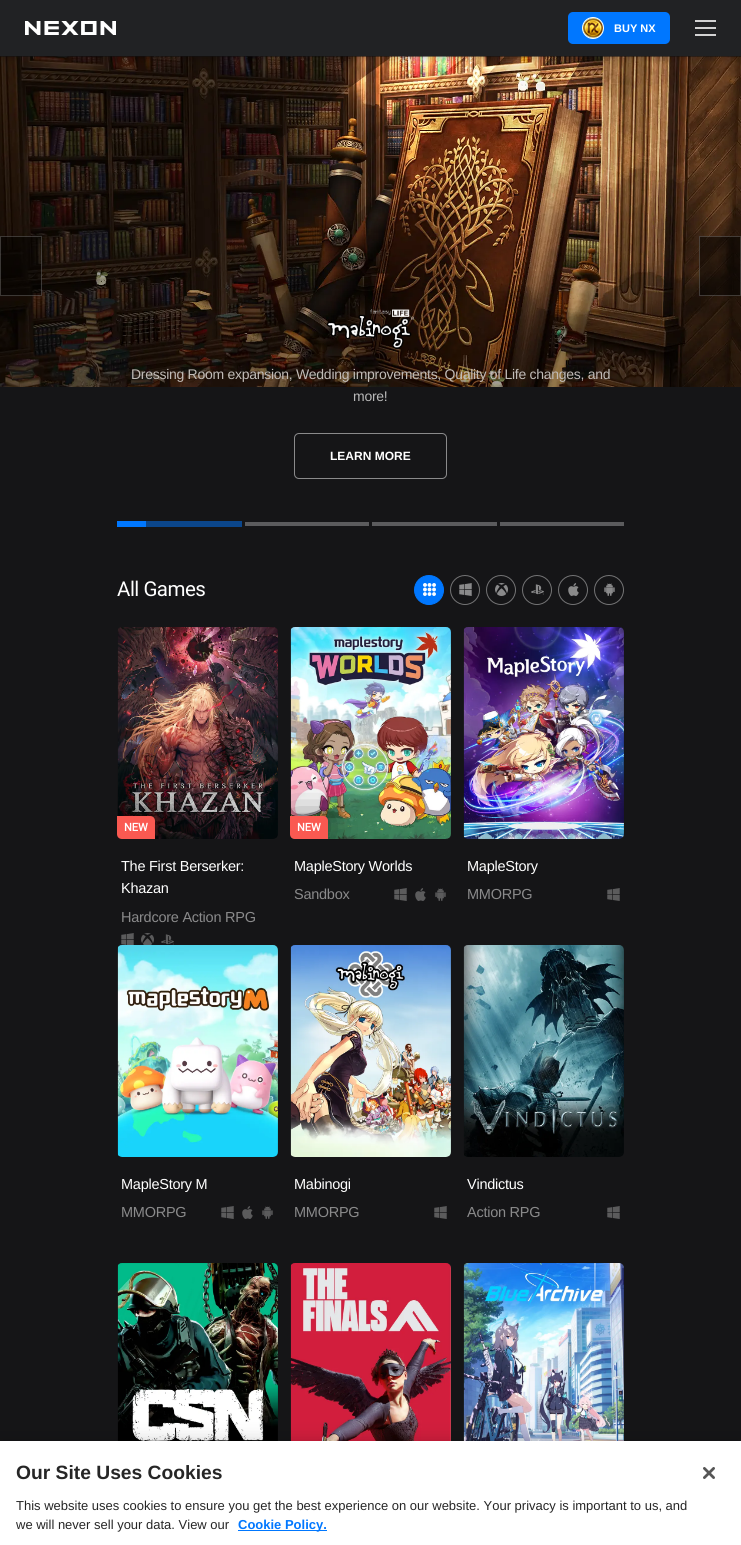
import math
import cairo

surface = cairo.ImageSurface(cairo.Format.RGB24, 741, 1545)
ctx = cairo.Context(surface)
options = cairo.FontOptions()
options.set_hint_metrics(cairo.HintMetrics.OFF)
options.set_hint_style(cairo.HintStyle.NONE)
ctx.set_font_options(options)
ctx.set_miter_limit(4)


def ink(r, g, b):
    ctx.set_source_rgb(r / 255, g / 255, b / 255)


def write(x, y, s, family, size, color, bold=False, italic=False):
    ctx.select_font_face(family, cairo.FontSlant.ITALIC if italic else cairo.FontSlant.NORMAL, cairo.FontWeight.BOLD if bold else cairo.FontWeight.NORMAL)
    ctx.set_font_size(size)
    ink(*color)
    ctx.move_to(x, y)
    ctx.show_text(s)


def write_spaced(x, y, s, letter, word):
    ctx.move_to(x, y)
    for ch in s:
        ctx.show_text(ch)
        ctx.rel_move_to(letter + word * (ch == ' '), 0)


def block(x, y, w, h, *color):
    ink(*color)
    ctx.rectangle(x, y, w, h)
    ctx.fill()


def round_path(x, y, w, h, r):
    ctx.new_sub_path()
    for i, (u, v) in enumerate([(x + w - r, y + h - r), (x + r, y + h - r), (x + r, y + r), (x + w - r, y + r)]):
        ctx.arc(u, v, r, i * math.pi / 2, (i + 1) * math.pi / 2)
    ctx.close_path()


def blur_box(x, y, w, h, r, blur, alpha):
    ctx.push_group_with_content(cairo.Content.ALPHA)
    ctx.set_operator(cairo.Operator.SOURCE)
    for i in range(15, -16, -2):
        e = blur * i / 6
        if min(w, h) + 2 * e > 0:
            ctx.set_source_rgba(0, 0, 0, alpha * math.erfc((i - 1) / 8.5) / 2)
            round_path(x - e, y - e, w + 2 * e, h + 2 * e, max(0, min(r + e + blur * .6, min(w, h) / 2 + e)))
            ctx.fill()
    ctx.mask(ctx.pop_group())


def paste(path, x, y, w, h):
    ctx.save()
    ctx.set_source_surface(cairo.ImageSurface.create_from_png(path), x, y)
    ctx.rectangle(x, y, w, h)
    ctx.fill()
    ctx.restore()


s1 = dict(family="Liberation Sans", size=11, color=(255, 255, 255), bold=True)
s2 = dict(family="Liberation Sans", size=12, color=(255, 255, 255), bold=True)
s3 = dict(family="Roboto", size=11, color=(255, 255, 255), bold=True)
s4 = dict(family="Liberation Sans", size=19.25, color=(38, 38, 38), bold=True)
s5 = dict(family="Liberation Sans", size=13, color=(38, 38, 38))
s6 = dict(family="Liberation Sans", size=13, color=(0, 119, 255), bold=True)

ink(21, 21, 23)
ctx.paint()
paste("pic3.png", 0, 56, 741, 331)
ink(0, 0, 0)
blur_box(0, 2, 741, 56, 0, 3.5, 0.25)
block(0, 0, 741, 56, 33, 34, 36)
paste("pic1.png", 25, 21, 91, 14)
ink(0, 119, 255)
round_path(568, 12, 102, 32, 5)
ctx.fill()
paste("pic2.png", 583, 18, 20, 20)
ctx.arc(593, 28, 10.5, 0, 2 * math.pi)
ink(255, 255, 255)
ctx.set_line_width(1)
ctx.stroke()
write(614, 32, "BUY NX", **s1)
block(695, 20, 21, 2, 211, 211, 211)
block(695, 27, 21, 2, 211, 211, 211)
block(695, 34, 21, 2, 211, 211, 211)
ctx.set_source_rgba(0, 0, 0, 0.5)
ctx.rectangle(0, 236, 42, 60)
ctx.fill()
ctx.rectangle(0.5, 236.5, 41, 59)
ctx.set_source_rgba(1, 1, 1, 0.2)
ctx.stroke()
ctx.set_source_rgba(0, 0, 0, 0.5)
ctx.rectangle(699, 236, 42, 60)
ctx.fill()
ctx.rectangle(699.5, 236.5, 41, 59)
ctx.set_source_rgba(1, 1, 1, 0.2)
ctx.stroke()
block(146, 521, 96, 6, 11, 70, 139)
block(117, 521, 29, 6, 0, 119, 255)
block(245, 522, 124, 4, 91, 91, 93)
block(372, 522, 125, 4, 91, 91, 93)
block(500, 522, 124, 4, 91, 91, 93)
paste("pic4.png", 326, 309, 88, 40)
ctx.select_font_face("Liberation Sans")
ctx.set_font_size(14)
ink(193, 188, 184)
write_spaced(131, 379, "Dressing Room expansion, Wedding improvements, Quality of Life changes, and", -0.28, 0)
ink(185, 185, 185)
write_spaced(353, 401, "more!", -0.28, 0)
round_path(294.5, 433.5, 152, 45, 4.5)
ink(138, 138, 139)
ctx.stroke()
write(330, 460, "LEARN MORE", **s2)
ctx.select_font_face("Roboto")
ctx.set_font_size(20.5)
write_spaced(117, 596, "All Games", -0.5, 0)
ink(0, 119, 255)
ctx.new_path()
ctx.arc(429, 590, 14.5, 0, 2 * math.pi)
ctx.fill_preserve()
ctx.stroke()
paste("pic5.png", 423, 583, 13, 13)
ctx.arc(465, 590, 14.5, 0, 2 * math.pi)
ink(115, 115, 116)
ctx.stroke()
paste("pic6.png", 459, 583, 13, 13)
ctx.arc(501, 590, 14.5, 0, 2 * math.pi)
ctx.stroke()
paste("pic7.png", 495, 583, 13, 13)
ctx.arc(537, 590, 14.5, 0, 2 * math.pi)
ctx.stroke()
paste("pic8.png", 531, 584, 13, 11)
ctx.arc(573, 590, 14.5, 0, 2 * math.pi)
ctx.stroke()
paste("pic9.png", 568, 583, 11, 13)
ctx.arc(609, 590, 14.5, 0, 2 * math.pi)
ctx.stroke()
paste("pic10.png", 604, 583, 11, 13)
paste("pic11.png", 117, 627, 161, 212)
ctx.save()
round_path(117, 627, 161, 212, 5)
ctx.clip()
ink(0, 0, 0)
blur_box(117, 816, 38, 23, 5, 20, 0.5)
ctx.restore()
ink(250, 89, 81)
ctx.new_path()
ctx.move_to(117, 816)
ctx.line_to(150, 816)
ctx.curve_to(153, 816, 155, 818, 155, 821)
ctx.line_to(155, 839)
ctx.line_to(122, 839)
ctx.curve_to(119, 839, 117, 837, 117, 834)
ctx.close_path()
ctx.fill()
write(124, 831, "NEW", **s3)
ctx.select_font_face("Liberation Sans")
ctx.set_font_size(14.5)
write_spaced(121, 871, "The First Berserker:", -0.25, 0)
write_spaced(121, 893, "Khazan", -0.25, 0)
ink(138, 138, 139)
write_spaced(121, 922, "Hardcore Action RPG", -0.25, 0)
paste("pic12.png", 121, 933, 13, 12)
paste("pic13.png", 141, 933, 13, 12)
paste("pic14.png", 161, 934, 13, 11)
paste("pic15.png", 290, 627, 161, 212)
ctx.save()
round_path(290, 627, 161, 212, 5)
ctx.clip()
ink(0, 0, 0)
blur_box(290, 816, 38, 23, 5, 20, 0.5)
ctx.restore()
ink(250, 89, 81)
ctx.new_path()
ctx.move_to(290, 816)
ctx.line_to(323, 816)
ctx.curve_to(326, 816, 328, 818, 328, 821)
ctx.line_to(328, 839)
ctx.line_to(295, 839)
ctx.curve_to(292, 839, 290, 837, 290, 834)
ctx.close_path()
ctx.fill()
write(297, 831, "NEW", **s3)
ctx.select_font_face("Liberation Sans")
ctx.set_font_size(14.5)
write_spaced(294, 871, "MapleStory Worlds", -0.25, 0)
ink(138, 138, 139)
write_spaced(294, 899, "Sandbox", -0.25, 0)
paste("pic16.png", 394, 888, 13, 13)
paste("pic17.png", 415, 888, 11, 13)
paste("pic18.png", 435, 888, 11, 13)
paste("pic19.png", 463, 627, 161, 212)
ink(255, 255, 255)
write_spaced(467, 871, "MapleStory", -0.25, 0)
ink(138, 138, 139)
write_spaced(467, 899, "MMORPG", -0.25, 0)
paste("pic16.png", 607, 888, 13, 13)
paste("pic20.png", 117, 945, 161, 212)
ink(255, 255, 255)
write_spaced(121, 1189, "MapleStory M", -0.25, 0)
ink(138, 138, 139)
write_spaced(121, 1217, "MMORPG", -0.25, 0)
paste("pic16.png", 221, 1206, 13, 13)
paste("pic17.png", 242, 1206, 11, 13)
paste("pic18.png", 262, 1206, 11, 13)
paste("pic21.png", 290, 945, 161, 212)
ink(255, 255, 255)
write_spaced(294, 1189, "Mabinogi", -0.25, 0)
ink(138, 138, 139)
write_spaced(294, 1217, "MMORPG", -0.25, 0)
paste("pic16.png", 434, 1206, 13, 13)
paste("pic22.png", 463, 945, 161, 212)
ink(255, 255, 255)
write_spaced(467, 1189, "Vindictus", -0.25, 0)
ink(138, 138, 139)
write_spaced(467, 1217, "Action RPG", -0.25, 0)
paste("pic16.png", 607, 1206, 13, 13)
paste("pic23.png", 117, 1263, 161, 178)
paste("pic24.png", 290, 1263, 161, 178)
paste("pic25.png", 463, 1263, 161, 178)
ink(0, 0, 0)
blur_box(0, 1441, 741, 104, 0, 9, 0.2)
block(0, 1441, 741, 104, 255, 255, 255)
write(16, 1479, "Our Site Uses Cookies", **s4)
write(16, 1510, "This website uses cookies to ensure you get the best experience on our website. Your privacy is important to us, and", **s5)
write(16, 1529, "we will never sell your data. View our", **s5)
block(238, 1530, 89, 1, 0, 119, 255)
write(238, 1529, "Cookie Policy.", **s6)
paste("pic26.png", 703, 1467, 12, 12)
surface.write_to_png("screenshot.png")
